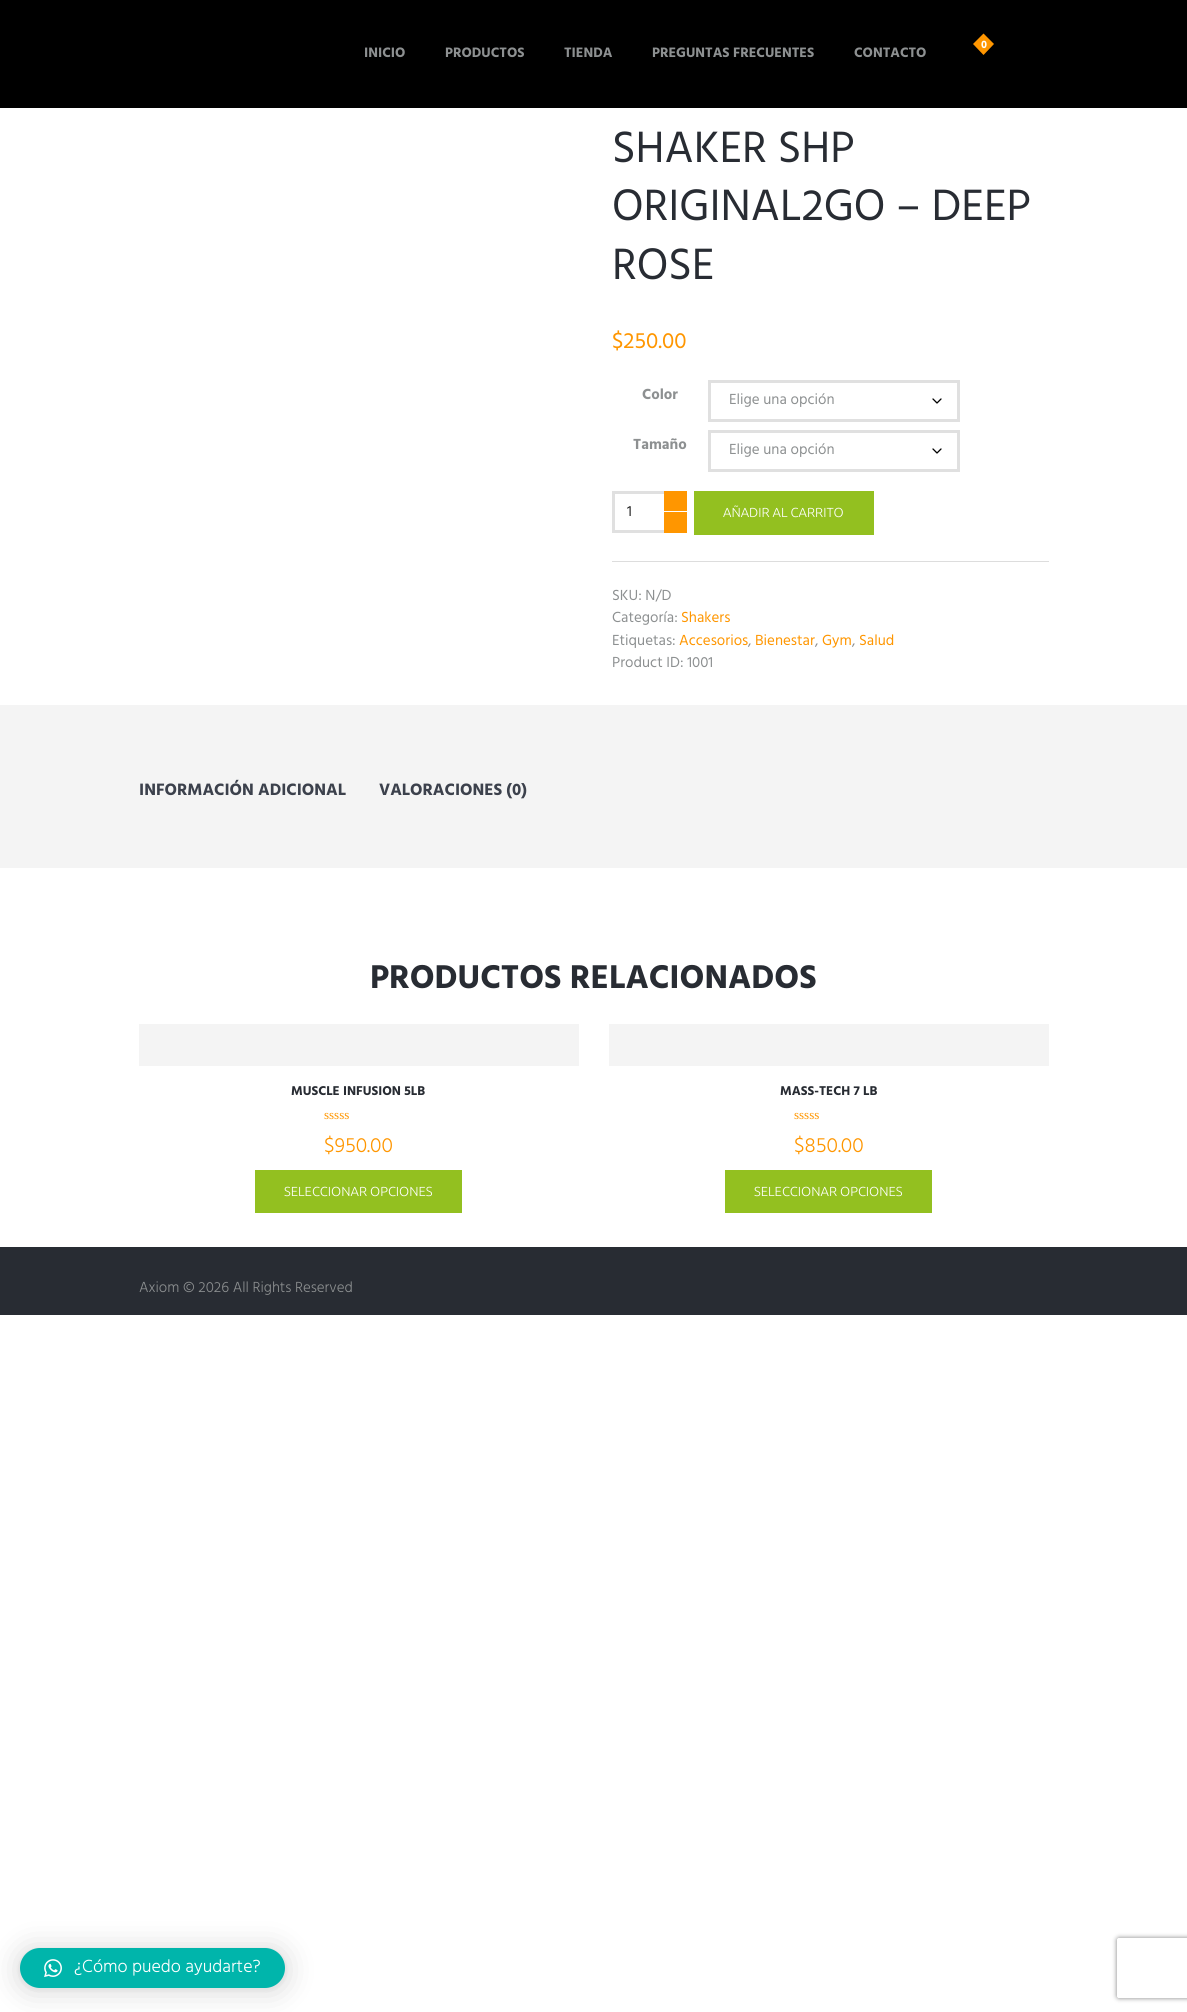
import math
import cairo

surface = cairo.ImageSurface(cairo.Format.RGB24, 1187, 2012)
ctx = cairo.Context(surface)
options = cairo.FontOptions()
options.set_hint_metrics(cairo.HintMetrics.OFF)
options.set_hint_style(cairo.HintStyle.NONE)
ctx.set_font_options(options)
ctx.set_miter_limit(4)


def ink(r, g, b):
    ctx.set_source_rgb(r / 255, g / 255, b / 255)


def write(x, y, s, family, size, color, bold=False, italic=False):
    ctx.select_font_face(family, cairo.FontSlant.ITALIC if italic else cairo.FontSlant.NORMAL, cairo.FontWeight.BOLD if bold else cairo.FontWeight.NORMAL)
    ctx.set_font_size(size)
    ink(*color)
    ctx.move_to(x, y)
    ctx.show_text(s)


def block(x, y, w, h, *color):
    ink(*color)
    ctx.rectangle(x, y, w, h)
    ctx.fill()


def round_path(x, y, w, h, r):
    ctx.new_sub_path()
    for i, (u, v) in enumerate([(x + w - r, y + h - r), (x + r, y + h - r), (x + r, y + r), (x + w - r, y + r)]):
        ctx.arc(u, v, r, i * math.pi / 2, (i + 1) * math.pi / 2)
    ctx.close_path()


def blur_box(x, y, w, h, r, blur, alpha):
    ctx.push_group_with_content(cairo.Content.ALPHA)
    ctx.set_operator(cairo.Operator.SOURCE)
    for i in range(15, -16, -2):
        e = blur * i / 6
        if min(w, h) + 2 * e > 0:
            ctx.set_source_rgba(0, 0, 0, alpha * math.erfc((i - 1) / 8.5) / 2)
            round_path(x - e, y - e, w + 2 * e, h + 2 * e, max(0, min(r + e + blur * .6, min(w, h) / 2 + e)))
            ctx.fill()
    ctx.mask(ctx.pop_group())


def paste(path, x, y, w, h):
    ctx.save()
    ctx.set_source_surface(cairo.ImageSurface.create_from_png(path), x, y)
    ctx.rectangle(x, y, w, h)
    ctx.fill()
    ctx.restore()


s1 = dict(family="Hind", size=11, color=(255, 255, 255), bold=True)
s2 = dict(family="Hind", size=14, color=(141, 144, 145), bold=True)
s3 = dict(family="Hind", size=45, color=(40, 44, 51))
s4 = dict(family="Hind", size=22.5, color=(255, 150, 0))
s5 = dict(family="Hind", size=15, color=(141, 144, 145), bold=True)
s6 = dict(family="Hind", size=15, color=(141, 144, 145))
s7 = dict(family="Hind", size=15, color=(34, 34, 34))
s8 = dict(family="Ubuntu Light", size=13.1, color=(255, 255, 255))
s9 = dict(family="Hind", size=15, color=(255, 150, 0))
s10 = dict(family="Hind", size=16.9, color=(60, 65, 76), bold=True)
s11 = dict(family="Hind", size=33.75, color=(40, 44, 51), bold=True)
s12 = dict(family="Hind", size=13.1, color=(40, 44, 51), bold=True)
s13 = dict(family="Liberation Serif", size=13, color=(255, 150, 0))
s14 = dict(family="Hind Light", size=21, color=(255, 150, 0))
s15 = dict(family="Hind Light", size=15, color=(141, 144, 145))
s16 = dict(family="Hind Light", size=18, color=(255, 255, 255))

ink(255, 255, 255)
ctx.paint()
block(0, 0, 1187, 108, 0, 0, 0)
ink(255, 150, 0)
ctx.new_path()
ctx.move_to(983.5, 33.5)
ctx.line_to(994, 44)
ctx.line_to(983.5, 55)
ctx.line_to(973, 44)
ctx.close_path()
ctx.fill()
write(981, 48, "0", **s1)
write(364, 57, "INICIO", **s2)
write(445, 57, "PRODUCTOS", **s2)
write(564, 57, "TIENDA", **s2)
write(652, 57, "PREGUNTAS FRECUENTES", **s2)
write(854, 57, "CONTACTO", **s2)
write(612, 162, "SHAKER SHP", **s3)
write(612, 220, "ORIGINAL2GO – DEEP", **s3)
write(612, 279, "ROSE", **s3)
write(612, 348, "$250.00", **s4)
block(612, 561, 437, 1, 221, 221, 221)
write(642, 399, "Color", **s5)
ctx.new_path()
ctx.move_to(933, 399)
ctx.line_to(937, 403)
ctx.line_to(941, 399)
ink(0, 0, 0)
ctx.set_line_width(1.3)
ctx.set_line_cap(cairo.LineCap.ROUND)
ctx.set_line_join(cairo.LineJoin.ROUND)
ctx.stroke()
ctx.rectangle(709.5, 381.5, 249, 39)
ink(224, 224, 224)
ctx.set_line_width(3)
ctx.set_line_cap(cairo.LineCap.BUTT)
ctx.set_line_join(cairo.LineJoin.MITER)
ctx.stroke()
write(729, 404, "Elige una opción", **s6)
write(633, 449, "Tamaño", **s5)
ctx.new_path()
ctx.move_to(933, 449)
ctx.line_to(937, 453)
ctx.line_to(941, 449)
ink(0, 0, 0)
ctx.set_line_width(1.3)
ctx.set_line_cap(cairo.LineCap.ROUND)
ctx.set_line_join(cairo.LineJoin.ROUND)
ctx.stroke()
ctx.rectangle(709.5, 431.5, 249, 39)
ink(224, 224, 224)
ctx.set_line_width(3)
ctx.set_line_cap(cairo.LineCap.BUTT)
ctx.set_line_join(cairo.LineJoin.MITER)
ctx.stroke()
write(729, 454, "Elige una opción", **s6)
ctx.rectangle(613.5, 492.5, 72, 39)
ink(224, 224, 224)
ctx.stroke()
write(627, 516, "1", **s7)
block(664, 491, 23, 20, 255, 150, 0)
block(664, 512, 23, 21, 255, 150, 0)
block(684, 511, 3, 1, 255, 255, 255)
block(694, 491, 180, 44, 147, 192, 32)
write(723, 517, "AÑADIR AL CARRITO", **s8)
write(612, 600, "SKU: N/D", **s6)
write(612, 622, "Categoría:", **s6)
write(681, 622, "Shakers", **s9)
write(612, 645, "Etiquetas:", **s6)
write(679, 645, "Accesorios", **s9)
write(748, 645, ",", **s6)
write(755, 645, "Bienestar", **s9)
write(815, 645, ",", **s6)
write(822, 645, "Gym", **s9)
write(852, 645, ",", **s6)
write(859, 645, "Salud", **s9)
write(612, 667, "Product ID: 1001", **s6)
block(0, 705, 1187, 163, 244, 244, 244)
write(139, 795, "INFORMACIÓN ADICIONAL", **s10)
write(379, 795, "VALORACIONES (0)", **s10)
write(370, 988, "PRODUCTOS RELACIONADOS", **s11)
block(139, 1024, 440, 42, 244, 244, 244)
write(291, 1095, "MUSCLE INFUSION 5LB", **s12)
write(324, 1119, "sssss", **s13)
write(324, 1152, "$950.00", **s14)
block(255, 1170, 207, 43, 147, 192, 32)
write(284, 1196, "SELECCIONAR OPCIONES", **s8)
block(609, 1024, 440, 42, 244, 244, 244)
write(780, 1095, "MASS-TECH 7 LB", **s12)
write(794, 1119, "sssss", **s13)
write(794, 1152, "$850.00", **s14)
block(725, 1170, 207, 43, 147, 192, 32)
write(754, 1196, "SELECCIONAR OPCIONES", **s8)
block(0, 1247, 1187, 68, 40, 44, 51)
write(139, 1292, "Axiom © 2026 All Rights Reserved", **s15)
ink(0, 0, 0)
blur_box(20, 1950, 265, 40, 20, 16, 0.16)
blur_box(20, 1949, 265, 40, 20, 3, 0.06)
ink(0, 181, 171)
round_path(20, 1948, 265, 40, 20)
ctx.fill()
paste("pic1.png", 44, 1959, 18, 19)
write(74, 1972, "¿Cómo puedo ayudarte?", **s16)
ctx.save()
ctx.set_fill_rule(cairo.FillRule.EVEN_ODD)
ctx.new_path()
ctx.move_to(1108, 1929)
ctx.line_to(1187, 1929)
ctx.line_to(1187, 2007)
ctx.line_to(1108, 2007)
ctx.close_path()
ctx.move_to(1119, 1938)
ctx.line_to(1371, 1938)
ctx.curve_to(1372, 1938, 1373, 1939, 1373, 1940)
ctx.line_to(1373, 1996)
ctx.curve_to(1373, 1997, 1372, 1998, 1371, 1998)
ctx.line_to(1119, 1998)
ctx.curve_to(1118, 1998, 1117, 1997, 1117, 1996)
ctx.line_to(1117, 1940)
ctx.curve_to(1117, 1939, 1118, 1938, 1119, 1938)
ctx.close_path()
ctx.clip()
ink(128, 128, 128)
blur_box(1117, 1938, 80, 60, 2, 2.5, 1)
ctx.restore()
surface.write_to_png("screenshot.png")
